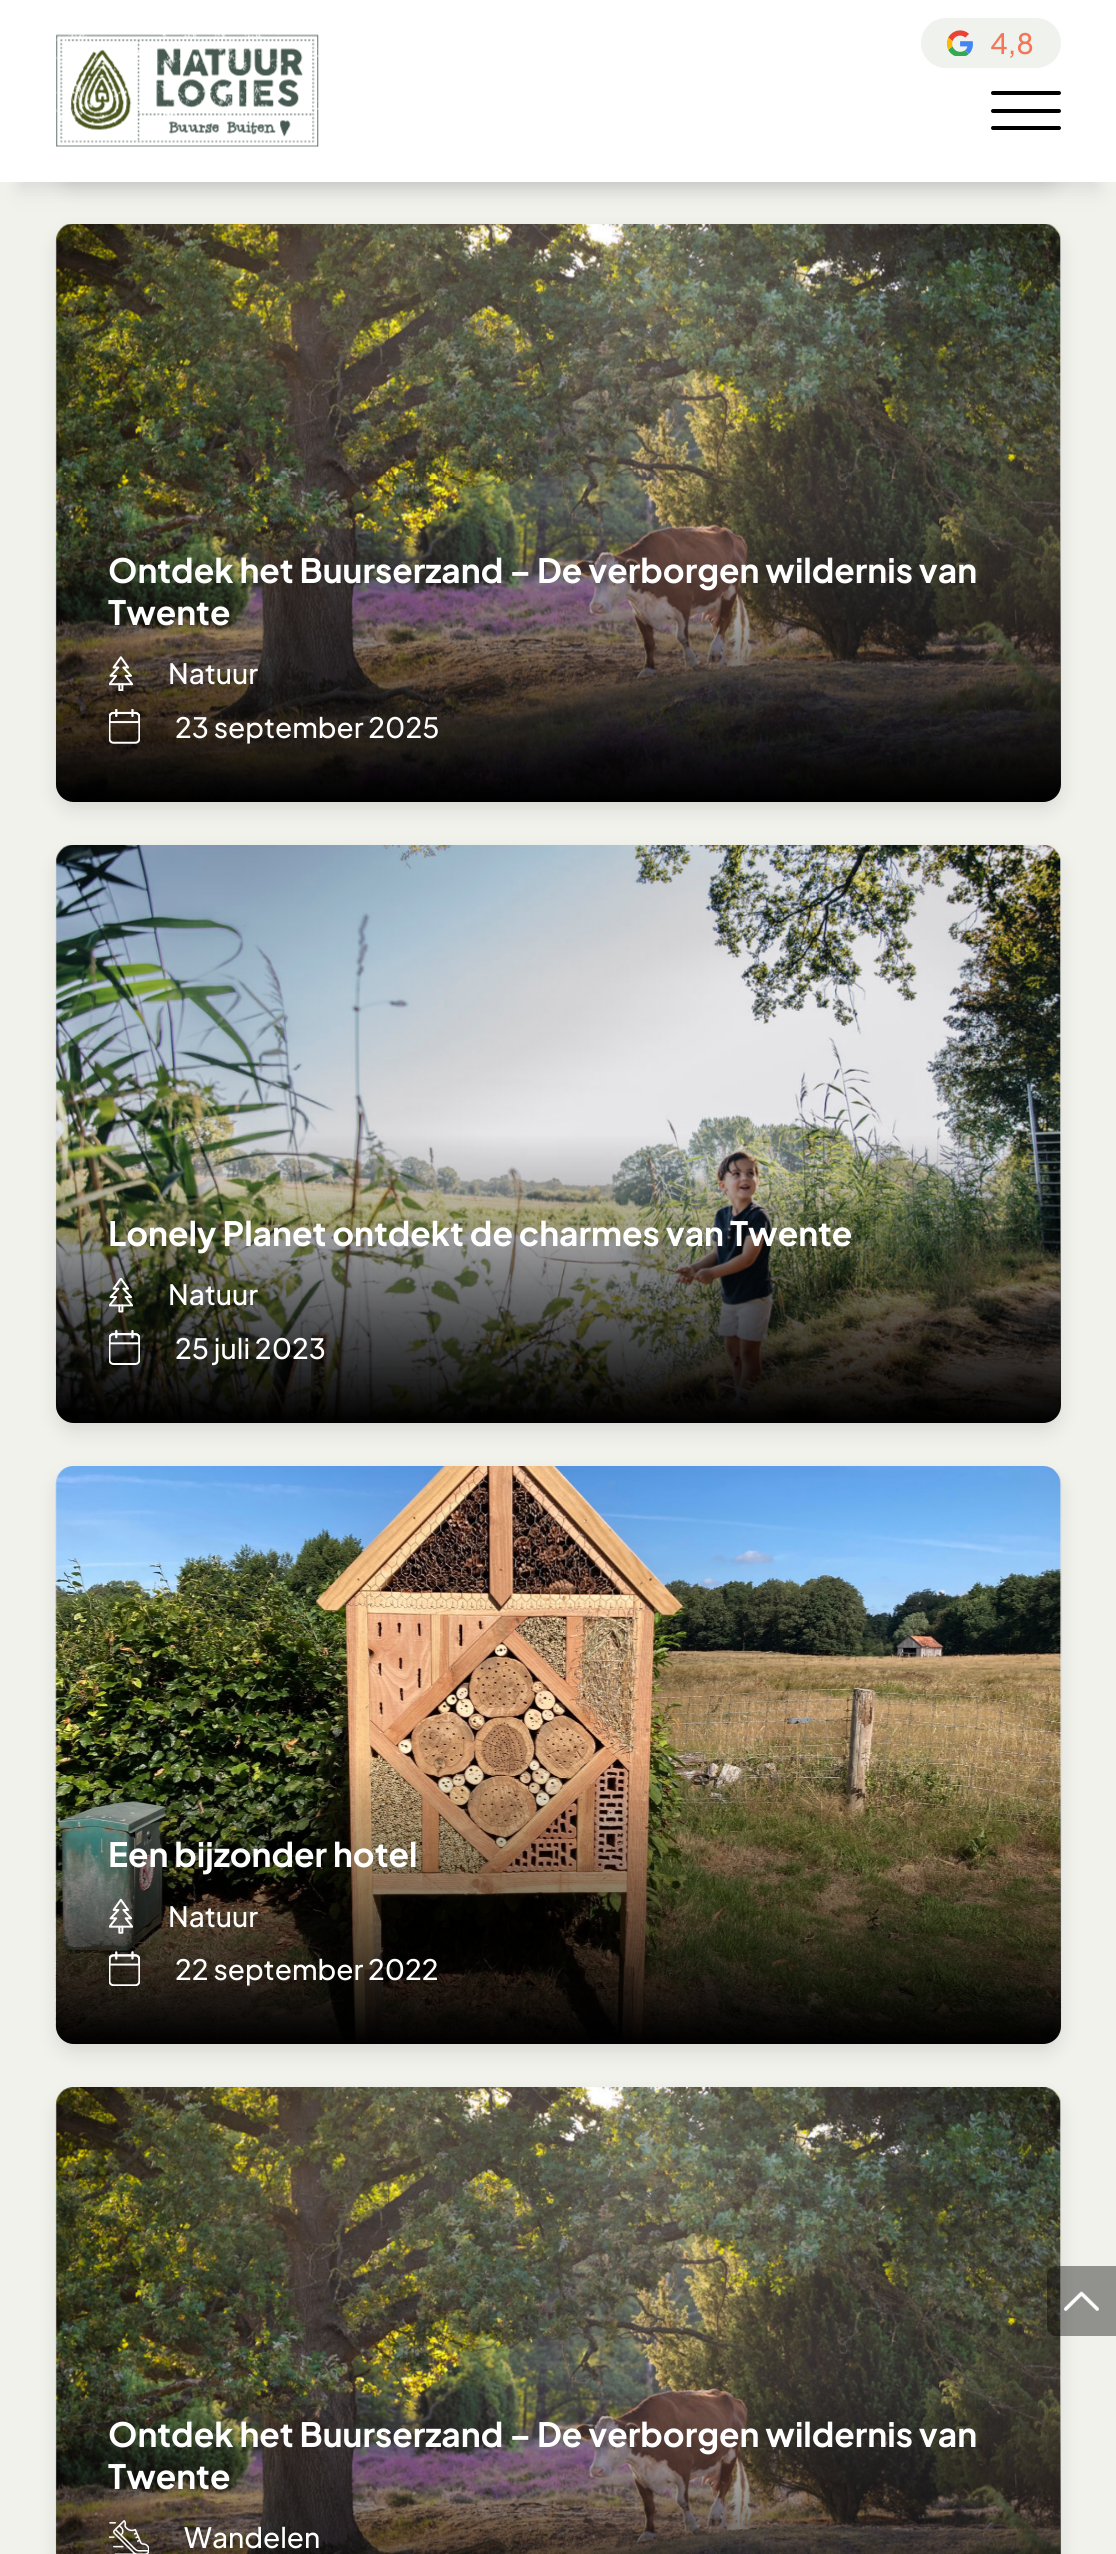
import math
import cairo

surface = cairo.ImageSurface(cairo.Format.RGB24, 1116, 2554)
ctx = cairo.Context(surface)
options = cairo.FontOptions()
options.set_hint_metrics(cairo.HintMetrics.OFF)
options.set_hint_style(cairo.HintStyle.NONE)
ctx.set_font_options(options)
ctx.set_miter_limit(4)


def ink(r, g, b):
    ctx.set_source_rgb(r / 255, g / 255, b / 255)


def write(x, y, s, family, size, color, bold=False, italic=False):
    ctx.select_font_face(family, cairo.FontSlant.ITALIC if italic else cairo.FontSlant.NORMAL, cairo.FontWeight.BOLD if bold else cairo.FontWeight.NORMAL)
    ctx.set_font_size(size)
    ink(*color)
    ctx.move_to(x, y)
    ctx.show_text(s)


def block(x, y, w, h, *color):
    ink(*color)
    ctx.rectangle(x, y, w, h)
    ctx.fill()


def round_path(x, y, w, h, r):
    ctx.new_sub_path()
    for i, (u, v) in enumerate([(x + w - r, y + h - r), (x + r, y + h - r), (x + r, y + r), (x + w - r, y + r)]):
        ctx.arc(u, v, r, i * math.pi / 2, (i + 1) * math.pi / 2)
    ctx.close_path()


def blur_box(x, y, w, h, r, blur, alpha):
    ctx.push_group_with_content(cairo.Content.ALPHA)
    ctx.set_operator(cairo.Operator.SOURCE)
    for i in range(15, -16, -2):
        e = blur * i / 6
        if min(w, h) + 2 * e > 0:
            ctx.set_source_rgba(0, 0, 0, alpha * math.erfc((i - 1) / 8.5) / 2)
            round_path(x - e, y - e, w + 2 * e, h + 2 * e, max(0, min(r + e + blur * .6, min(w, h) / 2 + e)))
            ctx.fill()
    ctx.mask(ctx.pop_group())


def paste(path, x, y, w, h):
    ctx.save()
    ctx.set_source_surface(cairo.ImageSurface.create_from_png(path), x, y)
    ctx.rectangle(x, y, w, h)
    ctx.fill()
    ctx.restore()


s1 = dict(family="Plus Jakarta Sans Medium", size=28, color=(245, 118, 86))
s2 = dict(family="Plus Jakarta Sans", size=33.5, color=(255, 255, 255), bold=True)
s3 = dict(family="Plus Jakarta Sans Medium", size=28, color=(255, 255, 255))

ink(242, 242, 237)
ctx.paint()
ink(204, 204, 204)
blur_box(18, 44, 1081, 147, 0, 9, 0.6)
ink(0, 0, 0)
blur_box(56, -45, 1005, 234, 18, 9, 0.1)
block(0, 0, 1116, 182, 255, 255, 255)
paste("pic1.png", 56, 34, 263, 113)
ink(239, 242, 237)
round_path(921, 18, 140, 50, 25)
ctx.fill()
paste("pic2.png", 947, 30, 26, 26)
write(990, 54, "4,8", **s1)
ink(0, 0, 0)
round_path(991, 126, 70, 4, 2)
ctx.fill()
round_path(991, 91, 70, 4, 2)
ctx.fill()
round_path(991, 109, 70, 4, 2)
ctx.fill()
ink(0, 0, 0)
blur_box(56, 233, 1005, 577, 18, 9, 0.1)
paste("pic3.png", 55, 224, 1006, 578)
gradient = cairo.LinearGradient(558, 802, 558, 513)
gradient.add_color_stop_rgba(0, 0, 0, 0, 1)
gradient.add_color_stop_rgba(1, 0, 0, 0, 0)
ctx.set_source(gradient)
ctx.new_path()
ctx.move_to(56, 513)
ctx.line_to(1061, 513)
ctx.line_to(1061, 784)
ctx.curve_to(1061, 794, 1053, 802, 1043, 802)
ctx.line_to(74, 802)
ctx.curve_to(64, 802, 56, 794, 56, 784)
ctx.close_path()
ctx.fill()
write(108, 583, "Ontdek het Buurserzand – De verborgen wildernis van", **s2)
write(108, 625, "Twente", **s2)
paste("pic4.png", 109, 656, 24, 35)
write(168, 684, "Natuur", **s3)
paste("pic5.png", 109, 709, 31, 35)
write(175, 738, "23 september 2025", **s3)
ink(0, 0, 0)
blur_box(56, 854, 1005, 578, 18, 9, 0.1)
paste("pic6.png", 55, 845, 1006, 578)
gradient = cairo.LinearGradient(558, 1423, 558, 1134)
gradient.add_color_stop_rgba(0, 0, 0, 0, 1)
gradient.add_color_stop_rgba(1, 0, 0, 0, 0)
ctx.set_source(gradient)
ctx.new_path()
ctx.move_to(56, 1134)
ctx.line_to(1061, 1134)
ctx.line_to(1061, 1405)
ctx.curve_to(1061, 1415, 1053, 1423, 1043, 1423)
ctx.line_to(74, 1423)
ctx.curve_to(64, 1423, 56, 1415, 56, 1405)
ctx.close_path()
ctx.fill()
write(108, 1246, "Lonely Planet ontdekt de charmes van Twente", **s2)
paste("pic7.png", 109, 1278, 24, 35)
write(168, 1305, "Natuur", **s3)
paste("pic8.png", 109, 1330, 31, 35)
write(175, 1359, "25 juli 2023", **s3)
ink(0, 0, 0)
blur_box(56, 1475, 1005, 578, 18, 9, 0.1)
paste("pic9.png", 55, 1466, 1007, 578)
gradient = cairo.LinearGradient(558, 2044, 558, 1755)
gradient.add_color_stop_rgba(0, 0, 0, 0, 1)
gradient.add_color_stop_rgba(1, 0, 0, 0, 0)
ctx.set_source(gradient)
ctx.new_path()
ctx.move_to(56, 1755)
ctx.line_to(1061, 1755)
ctx.line_to(1061, 2026)
ctx.curve_to(1061, 2036, 1053, 2044, 1043, 2044)
ctx.line_to(74, 2044)
ctx.curve_to(64, 2044, 56, 2036, 56, 2026)
ctx.close_path()
ctx.fill()
write(108, 1867, "Een bijzonder hotel", **s2)
paste("pic10.png", 109, 1899, 24, 35)
write(168, 1927, "Natuur", **s3)
paste("pic11.png", 109, 1951, 31, 35)
write(175, 1980, "22 september 2022", **s3)
ink(0, 0, 0)
blur_box(56, 2097, 1005, 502, 18, 9, 0.1)
paste("pic12.png", 55, 2087, 1006, 467)
gradient = cairo.LinearGradient(558, 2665, 558, 2377)
gradient.add_color_stop_rgba(0, 0, 0, 0, 1)
gradient.add_color_stop_rgba(1, 0, 0, 0, 0)
ctx.set_source(gradient)
ctx.rectangle(56, 2383, 1005, 171)
ctx.fill()
write(108, 2447, "Ontdek het Buurserzand – De verborgen wildernis van", **s2)
write(108, 2489, "Twente", **s2)
paste("pic13.png", 109, 2520, 40, 34)
write(184, 2548, "Wandelen", **s3)
ctx.set_source_rgba(0, 0, 0, 0.4)
ctx.new_path()
ctx.move_to(1056, 2266)
ctx.line_to(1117, 2266)
ctx.line_to(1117, 2336)
ctx.line_to(1056, 2336)
ctx.curve_to(1051, 2336, 1047, 2332, 1047, 2327)
ctx.line_to(1047, 2275)
ctx.curve_to(1047, 2270, 1051, 2266, 1056, 2266)
ctx.close_path()
ctx.fill()
paste("pic14.png", 1064, 2291, 35, 20)
surface.write_to_png("screenshot.png")
